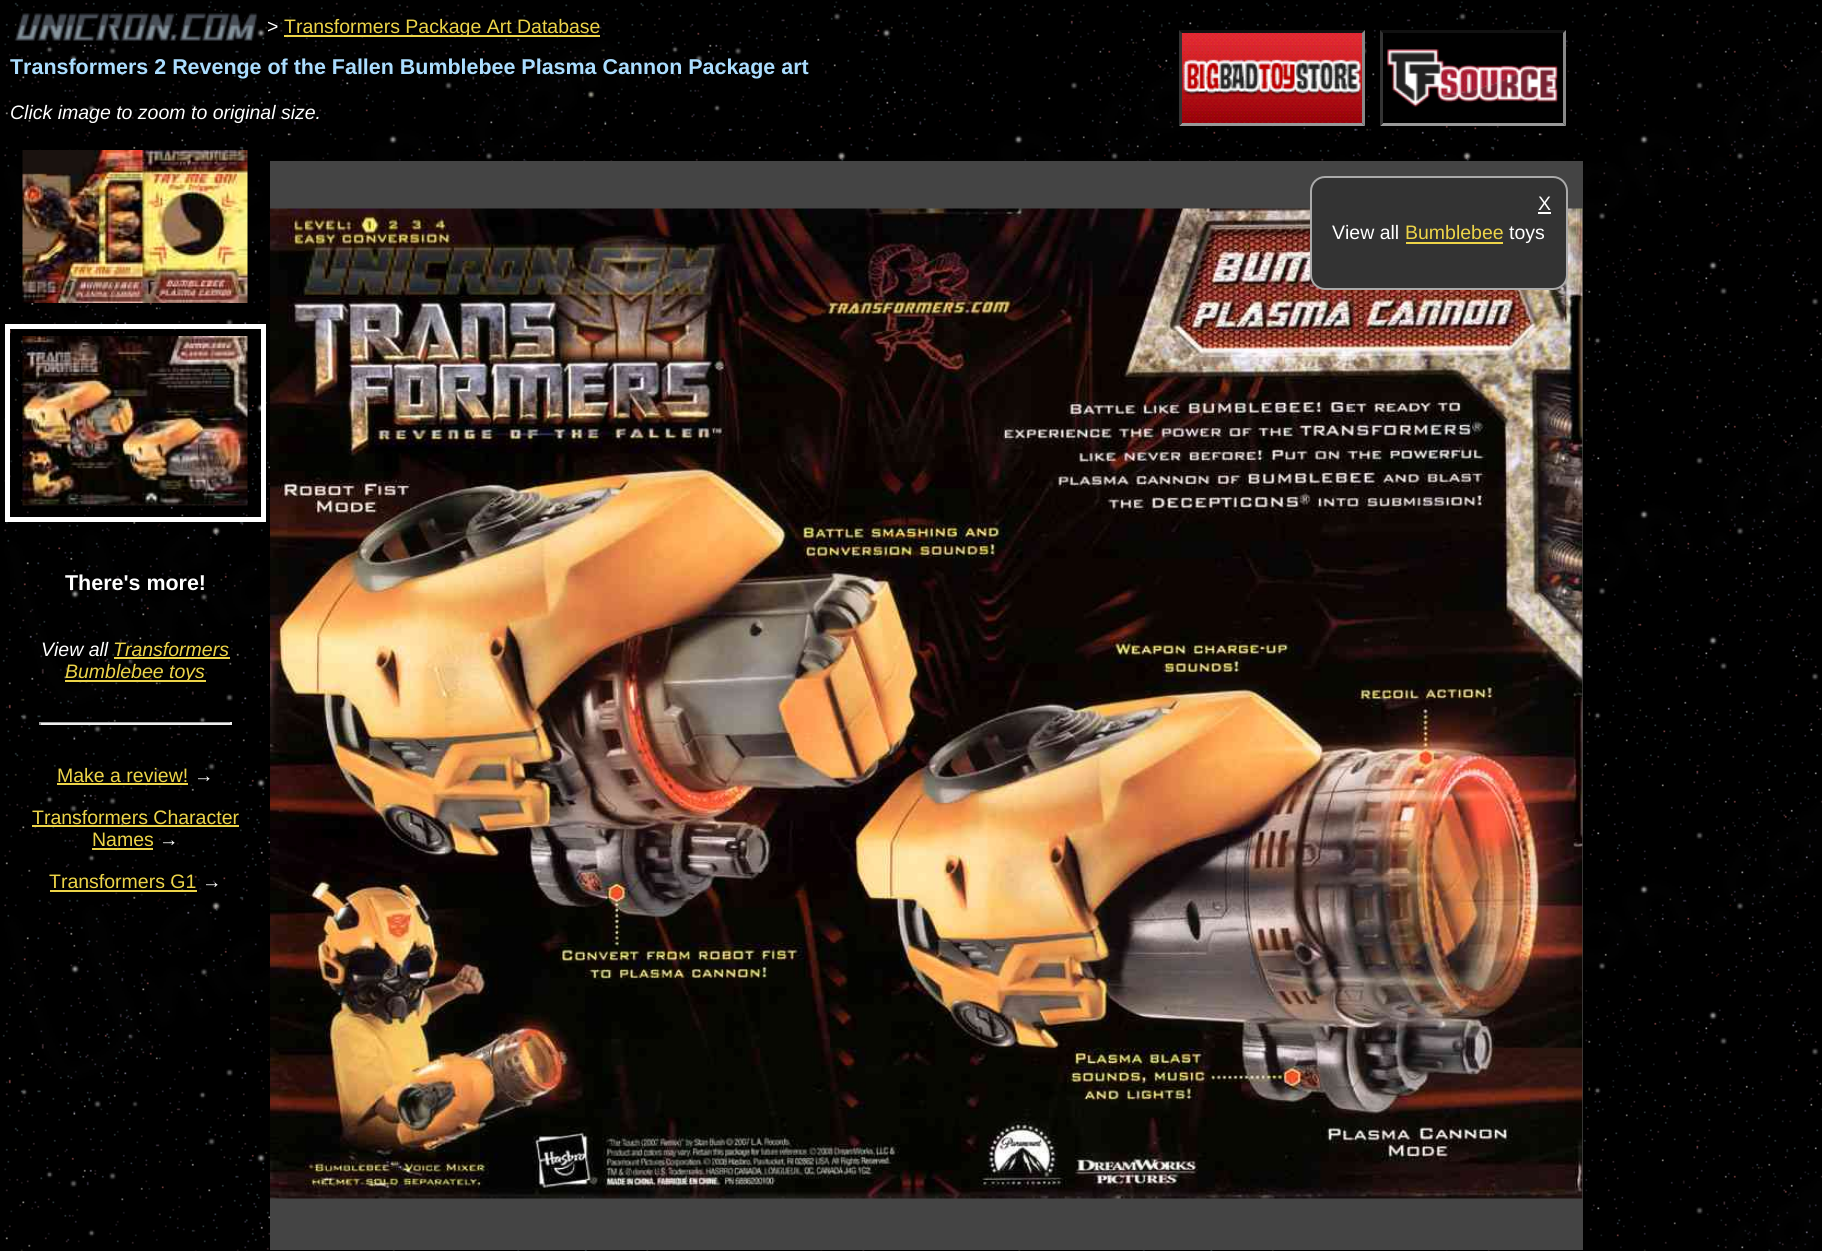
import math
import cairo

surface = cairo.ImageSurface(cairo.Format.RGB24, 1822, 1251)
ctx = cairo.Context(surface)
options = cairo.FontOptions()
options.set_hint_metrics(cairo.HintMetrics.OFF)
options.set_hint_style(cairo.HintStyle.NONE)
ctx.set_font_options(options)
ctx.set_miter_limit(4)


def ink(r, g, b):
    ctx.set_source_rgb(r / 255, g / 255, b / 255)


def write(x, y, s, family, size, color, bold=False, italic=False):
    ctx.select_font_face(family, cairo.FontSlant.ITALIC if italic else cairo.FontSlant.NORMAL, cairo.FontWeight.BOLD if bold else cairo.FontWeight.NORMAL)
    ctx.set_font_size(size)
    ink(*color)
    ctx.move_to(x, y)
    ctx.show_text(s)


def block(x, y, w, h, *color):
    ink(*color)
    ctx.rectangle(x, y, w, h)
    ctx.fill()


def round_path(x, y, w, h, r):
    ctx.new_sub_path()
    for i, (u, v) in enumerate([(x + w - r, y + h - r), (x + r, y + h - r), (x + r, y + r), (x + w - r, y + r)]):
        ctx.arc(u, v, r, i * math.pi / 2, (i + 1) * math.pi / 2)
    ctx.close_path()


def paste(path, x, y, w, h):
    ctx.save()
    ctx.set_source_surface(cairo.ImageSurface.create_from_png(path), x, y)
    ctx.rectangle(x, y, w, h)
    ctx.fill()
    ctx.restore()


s1 = dict(family="Liberation Sans", size=19.5, color=(255, 255, 255))
s2 = dict(family="Liberation Sans", size=19.5, color=(237, 212, 72))
s3 = dict(family="Liberation Sans", size=21.45, color=(170, 221, 255), bold=True)
s4 = dict(family="Liberation Sans", size=19.5, color=(255, 255, 255), italic=True)
s5 = dict(family="Liberation Sans", size=21.45, color=(255, 255, 255), bold=True)
s6 = dict(family="Liberation Sans", size=19.5, color=(237, 212, 72), italic=True)

ink(0, 0, 0)
ctx.paint()
paste("pic1.png", 2, 1, 1820, 1250)
paste("pic2.png", 14, 11, 244, 32)
write(267, 33, ">", **s1)
block(284, 35, 316, 2, 237, 212, 72)
write(284, 33, "Transformers Package Art Database", **s2)
write(10, 74, "Transformers 2 Revenge of the Fallen Bumblebee Plasma Cannon Package art", **s3)
ink(17, 17, 17)
ctx.new_path()
ctx.move_to(1179, 30)
ctx.line_to(1365, 30)
ctx.line_to(1362, 33)
ctx.line_to(1182, 33)
ctx.close_path()
ctx.fill()
ink(136, 136, 136)
ctx.new_path()
ctx.move_to(1365, 30)
ctx.line_to(1365, 126)
ctx.line_to(1362, 123)
ctx.line_to(1362, 33)
ctx.close_path()
ctx.fill()
ink(153, 153, 153)
ctx.new_path()
ctx.move_to(1365, 126)
ctx.line_to(1179, 126)
ctx.line_to(1182, 123)
ctx.line_to(1362, 123)
ctx.close_path()
ctx.fill()
ink(51, 51, 51)
ctx.new_path()
ctx.move_to(1179, 126)
ctx.line_to(1179, 30)
ctx.line_to(1182, 33)
ctx.line_to(1182, 123)
ctx.close_path()
ctx.fill()
ink(17, 17, 17)
ctx.new_path()
ctx.move_to(1380, 30)
ctx.line_to(1566, 30)
ctx.line_to(1563, 33)
ctx.line_to(1383, 33)
ctx.close_path()
ctx.fill()
paste("pic3.png", 1182, 33, 180, 90)
ink(136, 136, 136)
ctx.new_path()
ctx.move_to(1566, 30)
ctx.line_to(1566, 126)
ctx.line_to(1563, 123)
ctx.line_to(1563, 33)
ctx.close_path()
ctx.fill()
ink(153, 153, 153)
ctx.new_path()
ctx.move_to(1566, 126)
ctx.line_to(1380, 126)
ctx.line_to(1383, 123)
ctx.line_to(1563, 123)
ctx.close_path()
ctx.fill()
ink(51, 51, 51)
ctx.new_path()
ctx.move_to(1380, 126)
ctx.line_to(1380, 30)
ctx.line_to(1383, 33)
ctx.line_to(1383, 123)
ctx.close_path()
ctx.fill()
paste("pic4.png", 1383, 33, 180, 90)
write(10, 119, "Click image to zoom to original size.", **s4)
block(270, 161, 1313, 1089, 68, 68, 68)
paste("pic5.png", 270, 208, 1313, 991)
ink(51, 51, 51)
round_path(1311, 177, 256, 112, 14)
ctx.fill_preserve()
ink(170, 170, 170)
ctx.stroke()
write(1538, 210, "X", **s1)
block(1538, 212, 13, 2, 255, 255, 255)
write(1332, 239, "View all", **s1)
write(1405, 239, "Bumblebee", **s2)
block(1406, 242, 97, 2, 237, 212, 72)
write(1509, 239, "toys", **s1)
paste("pic6.png", 22, 150, 226, 153)
ctx.rectangle(7.5, 326.5, 256, 193)
ctx.set_line_width(5)
ctx.stroke()
paste("pic7.png", 22, 336, 226, 170)
write(65, 590, "There's more!", **s5)
write(41, 656, "View all", **s4)
write(113, 656, "Transformers", **s6)
block(114, 657, 116, 2, 237, 212, 72)
block(65, 680, 141, 2, 237, 212, 72)
write(65, 678, "Bumblebee toys", **s6)
block(39, 722, 192, 1, 159, 159, 159)
block(230, 722, 2, 3, 238, 238, 238)
block(39, 723, 192, 2, 238, 238, 238)
block(39, 722, 2, 3, 159, 159, 159)
write(57, 782, "Make a review!", **s2)
block(57, 783, 131, 2, 237, 212, 72)
write(194, 782, "→", **s1)
write(32, 824, "Transformers Character", **s2)
block(32, 825, 207, 2, 237, 212, 72)
write(92, 846, "Names", **s2)
block(92, 848, 61, 2, 237, 212, 72)
write(159, 846, "→", **s1)
write(49, 888, "Transformers G1", **s2)
block(50, 890, 147, 2, 237, 212, 72)
write(202, 888, "→", **s1)
surface.write_to_png("screenshot.png")
